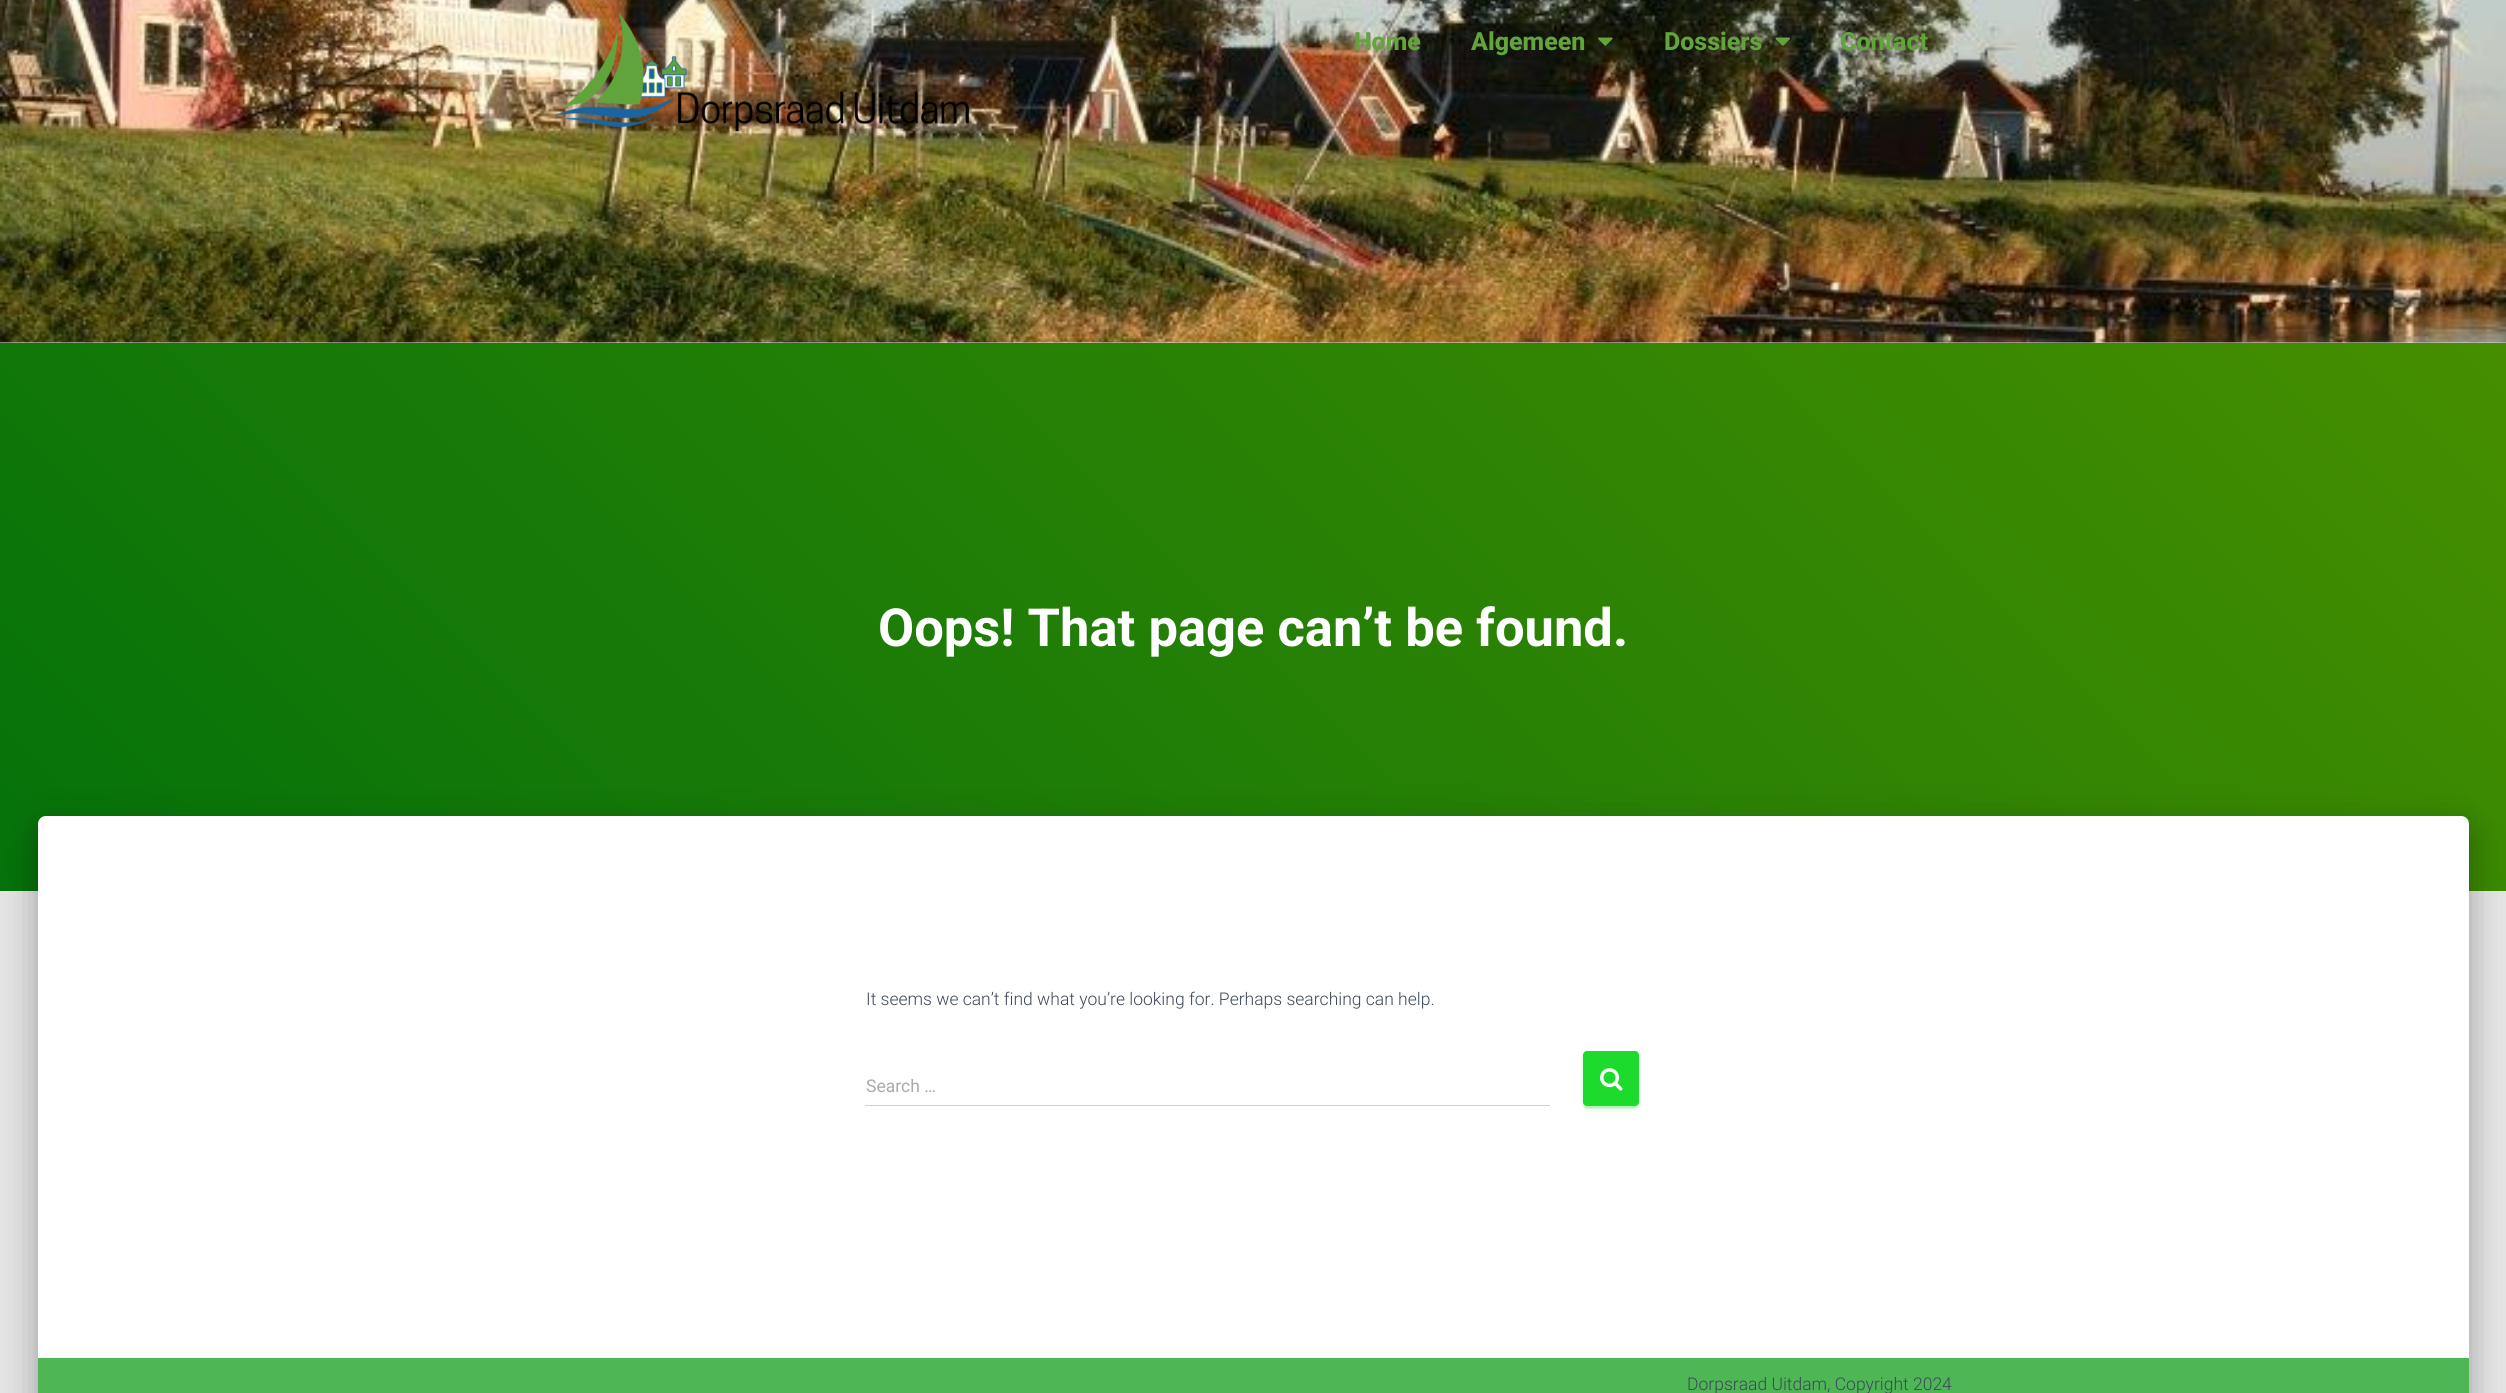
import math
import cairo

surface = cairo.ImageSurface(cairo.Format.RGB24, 2506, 1393)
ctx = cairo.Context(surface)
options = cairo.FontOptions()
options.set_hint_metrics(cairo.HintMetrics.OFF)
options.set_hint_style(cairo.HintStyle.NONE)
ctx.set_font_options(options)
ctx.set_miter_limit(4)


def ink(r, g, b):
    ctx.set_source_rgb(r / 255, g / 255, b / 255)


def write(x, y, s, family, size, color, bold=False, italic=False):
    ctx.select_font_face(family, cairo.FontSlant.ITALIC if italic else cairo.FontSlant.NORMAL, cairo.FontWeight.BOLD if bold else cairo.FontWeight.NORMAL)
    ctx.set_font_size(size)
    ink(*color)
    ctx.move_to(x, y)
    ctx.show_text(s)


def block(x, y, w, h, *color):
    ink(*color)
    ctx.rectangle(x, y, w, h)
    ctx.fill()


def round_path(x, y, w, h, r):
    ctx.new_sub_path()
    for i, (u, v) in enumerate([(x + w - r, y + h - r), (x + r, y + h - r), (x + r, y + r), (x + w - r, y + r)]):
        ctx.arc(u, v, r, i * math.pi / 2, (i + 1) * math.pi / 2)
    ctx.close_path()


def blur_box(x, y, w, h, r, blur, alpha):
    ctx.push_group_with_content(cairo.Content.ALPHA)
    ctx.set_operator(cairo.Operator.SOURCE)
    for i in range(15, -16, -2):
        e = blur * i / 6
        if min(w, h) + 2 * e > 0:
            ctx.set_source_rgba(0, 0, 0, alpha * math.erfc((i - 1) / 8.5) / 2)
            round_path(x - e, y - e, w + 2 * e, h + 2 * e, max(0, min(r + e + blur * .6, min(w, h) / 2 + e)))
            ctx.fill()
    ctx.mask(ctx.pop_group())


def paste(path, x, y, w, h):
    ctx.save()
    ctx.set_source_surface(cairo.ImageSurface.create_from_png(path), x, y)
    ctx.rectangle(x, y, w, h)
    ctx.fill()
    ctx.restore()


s1 = dict(family="Roboto ExtraBold", size=25, color=(99, 164, 60))
s2 = dict(family="Roboto", size=52.5, color=(255, 255, 255), bold=True)
s3 = dict(family="Roboto Light", size=17.5, color=(60, 72, 88))
s4 = dict(family="Roboto", size=17.5, color=(170, 170, 170))

ink(229, 229, 229)
ctx.paint()
paste("pic1.png", 0, 0, 2506, 343)
paste("pic2.png", 554, 13, 415, 119)
write(1354, 50, "Home", **s1)
write(1471, 50, "Algemeen", **s1)
paste("pic3.png", 1598, 37, 15, 9)
write(1664, 50, "Dossiers", **s1)
paste("pic4.png", 1775, 37, 15, 9)
write(1840, 50, "Contact", **s1)
gradient = cairo.LinearGradient(489, 1381, 2017, -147)
gradient.add_color_stop_rgba(0, 0.016, 0.447, 0.039, 1)
gradient.add_color_stop_rgba(1, 0.275, 0.557, 0, 1)
ctx.set_source(gradient)
ctx.rectangle(0, 343, 2506, 548)
ctx.fill()
write(878, 646, "Oops! That page can’t be found.", **s2)
ink(0, 0, 0)
blur_box(44, 833, 2419, 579, 1, 6, 0.2)
blur_box(31, 818, 2444, 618, 14, 19, 0.12)
blur_box(35, 834, 2436, 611, 10, 15, 0.14)
ink(255, 255, 255)
ctx.new_path()
ctx.move_to(46, 816)
ctx.line_to(2461, 816)
ctx.curve_to(2465.5, 816, 2469, 819.5, 2469, 824)
ctx.line_to(2469, 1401)
ctx.line_to(38, 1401)
ctx.line_to(38, 824)
ctx.curve_to(38, 819.5, 41.5, 816, 46, 816)
ctx.close_path()
ctx.fill()
write(866, 1005, "It seems we can’t find what you’re looking for. Perhaps searching can help.", **s3)
write(866, 1092, "Search …", **s4)
block(865, 1105, 685, 1, 210, 210, 210)
ink(28, 219, 44)
blur_box(1583, 1053, 56, 55, 4, 3, 0.12)
blur_box(1585, 1058, 51, 50, 1, 0.5, 0.2)
blur_box(1583, 1054, 56, 55, 4, 1, 0.14)
ink(28, 219, 44)
round_path(1583, 1051, 56, 55, 4)
ctx.fill()
paste("pic5.png", 1600, 1068, 23, 23)
block(38, 1358, 2431, 35, 79, 182, 86)
write(1687, 1390, "Dorpsraad Uitdam, Copyright 2024", **s3)
surface.write_to_png("screenshot.png")
